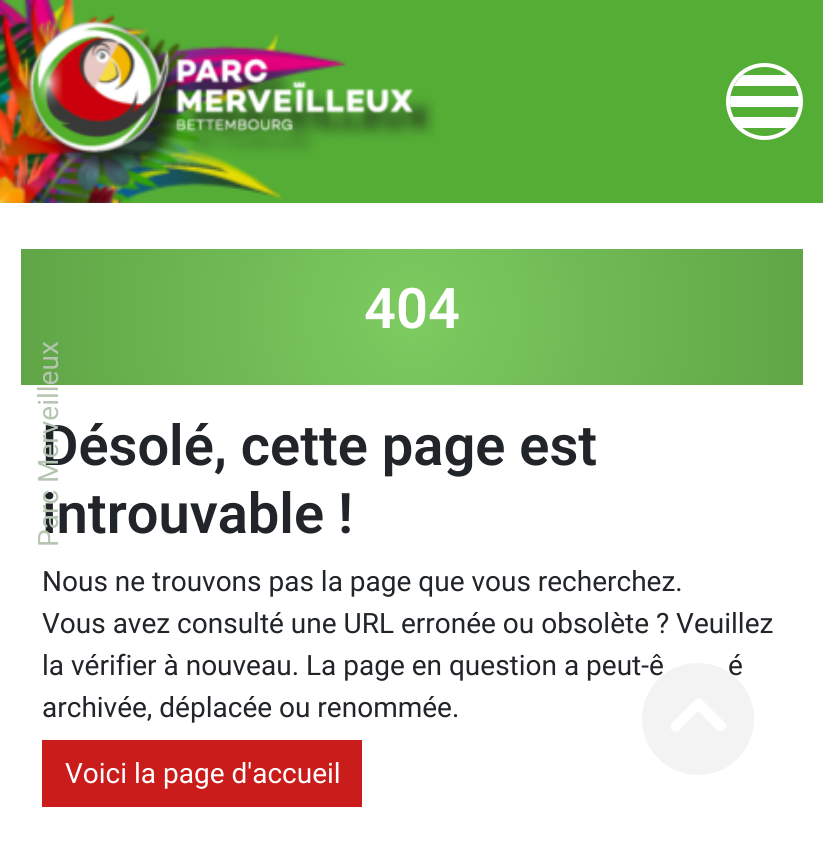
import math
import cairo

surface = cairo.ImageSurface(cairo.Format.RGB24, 823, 858)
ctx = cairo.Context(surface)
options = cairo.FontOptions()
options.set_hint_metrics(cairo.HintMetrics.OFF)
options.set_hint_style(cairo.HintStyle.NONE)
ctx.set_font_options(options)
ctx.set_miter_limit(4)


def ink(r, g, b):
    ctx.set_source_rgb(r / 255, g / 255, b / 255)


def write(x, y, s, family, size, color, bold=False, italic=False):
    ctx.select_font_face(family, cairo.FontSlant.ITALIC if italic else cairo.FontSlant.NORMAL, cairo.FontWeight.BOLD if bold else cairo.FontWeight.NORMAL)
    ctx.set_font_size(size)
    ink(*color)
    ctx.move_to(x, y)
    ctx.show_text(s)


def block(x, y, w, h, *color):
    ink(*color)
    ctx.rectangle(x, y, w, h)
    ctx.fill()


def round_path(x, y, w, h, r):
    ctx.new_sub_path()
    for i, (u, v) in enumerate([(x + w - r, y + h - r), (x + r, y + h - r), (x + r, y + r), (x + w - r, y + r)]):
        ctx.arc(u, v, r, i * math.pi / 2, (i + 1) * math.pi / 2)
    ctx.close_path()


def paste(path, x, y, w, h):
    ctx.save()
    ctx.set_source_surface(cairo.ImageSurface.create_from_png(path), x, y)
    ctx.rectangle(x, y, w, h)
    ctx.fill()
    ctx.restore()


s1 = dict(family="Roboto SemiBold", size=56, color=(255, 255, 255))
s2 = dict(family="Roboto SemiBold", size=56, color=(33, 37, 41))
s3 = dict(family="Roboto", size=28, color=(33, 37, 41))
s4 = dict(family="Roboto", size=28, color=(255, 255, 255))
s5 = dict(family="Roboto", size=28, color=(182, 197, 178))

ink(255, 255, 255)
ctx.paint()
block(0, 0, 823, 203, 84, 173, 53)
paste("pic1.png", 0, 0, 347, 203)
paste("pic2.png", 29, 20, 407, 158)
ctx.arc(764.5, 101.5, 36.5, 0, 2 * math.pi)
ink(255, 255, 255)
ctx.set_line_width(4)
ctx.stroke()
ctx.save()
round_path(730, 67, 70, 70, 35)
ctx.clip()
block(734, 75, 62, 11, 255, 255, 255)
block(730, 96, 70, 11, 255, 255, 255)
block(733, 117, 64, 11, 255, 255, 255)
ctx.restore()
gradient = cairo.RadialGradient(412, 317, 0, 412, 317, 397)
gradient.add_color_stop_rgba(0, 0.49, 0.796, 0.38, 1)
gradient.add_color_stop_rgba(1, 0.376, 0.647, 0.275, 1)
ctx.set_source(gradient)
ctx.rectangle(21, 249, 782, 136)
ctx.fill()
write(364, 328, "404", **s1)
write(42, 465, "Désolé, cette page est", **s2)
write(42, 533, "introuvable !", **s2)
write(42, 591, "Nous ne trouvons pas la page que vous recherchez.", **s3)
write(42, 633, "Vous avez consulté une URL erronée ou obsolète ? Veuillez", **s3)
write(42, 675, "la vérifier à nouveau. La page en question a peut-ê", **s3)
write(728, 675, "é", **s3)
write(42, 717, "archivée, déplacée ou renommée.", **s3)
block(42, 740, 320, 67, 203, 28, 28)
write(65, 783, "Voici la page d'accueil", **s4)
ctx.save()
ctx.translate(58, 547)
ctx.rotate(-90 * math.pi / 180)
write(0, 0, "Parc Merveilleux", **s5)
ctx.restore()
ctx.set_source_rgba(0.933, 0.933, 0.933, 0.7)
ctx.new_path()
ctx.move_to(698, 775)
ctx.curve_to(729, 775, 754, 750, 754, 719)
ctx.curve_to(754, 688, 729, 663, 698, 663)
ctx.curve_to(667, 663, 642, 688, 642, 719)
ctx.curve_to(642, 750, 667, 775, 698, 775)
ctx.close_path()
ctx.move_to(725, 723)
ctx.curve_to(728, 726, 726, 731, 721, 731)
ctx.line_to(718, 731)
ctx.line_to(698, 711)
ctx.line_to(679, 730)
ctx.curve_to(677, 732, 674, 732, 672, 730)
ctx.curve_to(670, 728, 670, 725, 672, 723)
ctx.line_to(695, 700)
ctx.curve_to(697, 698, 700, 698, 702, 700)
ctx.close_path()
ctx.fill()
surface.write_to_png("screenshot.png")
